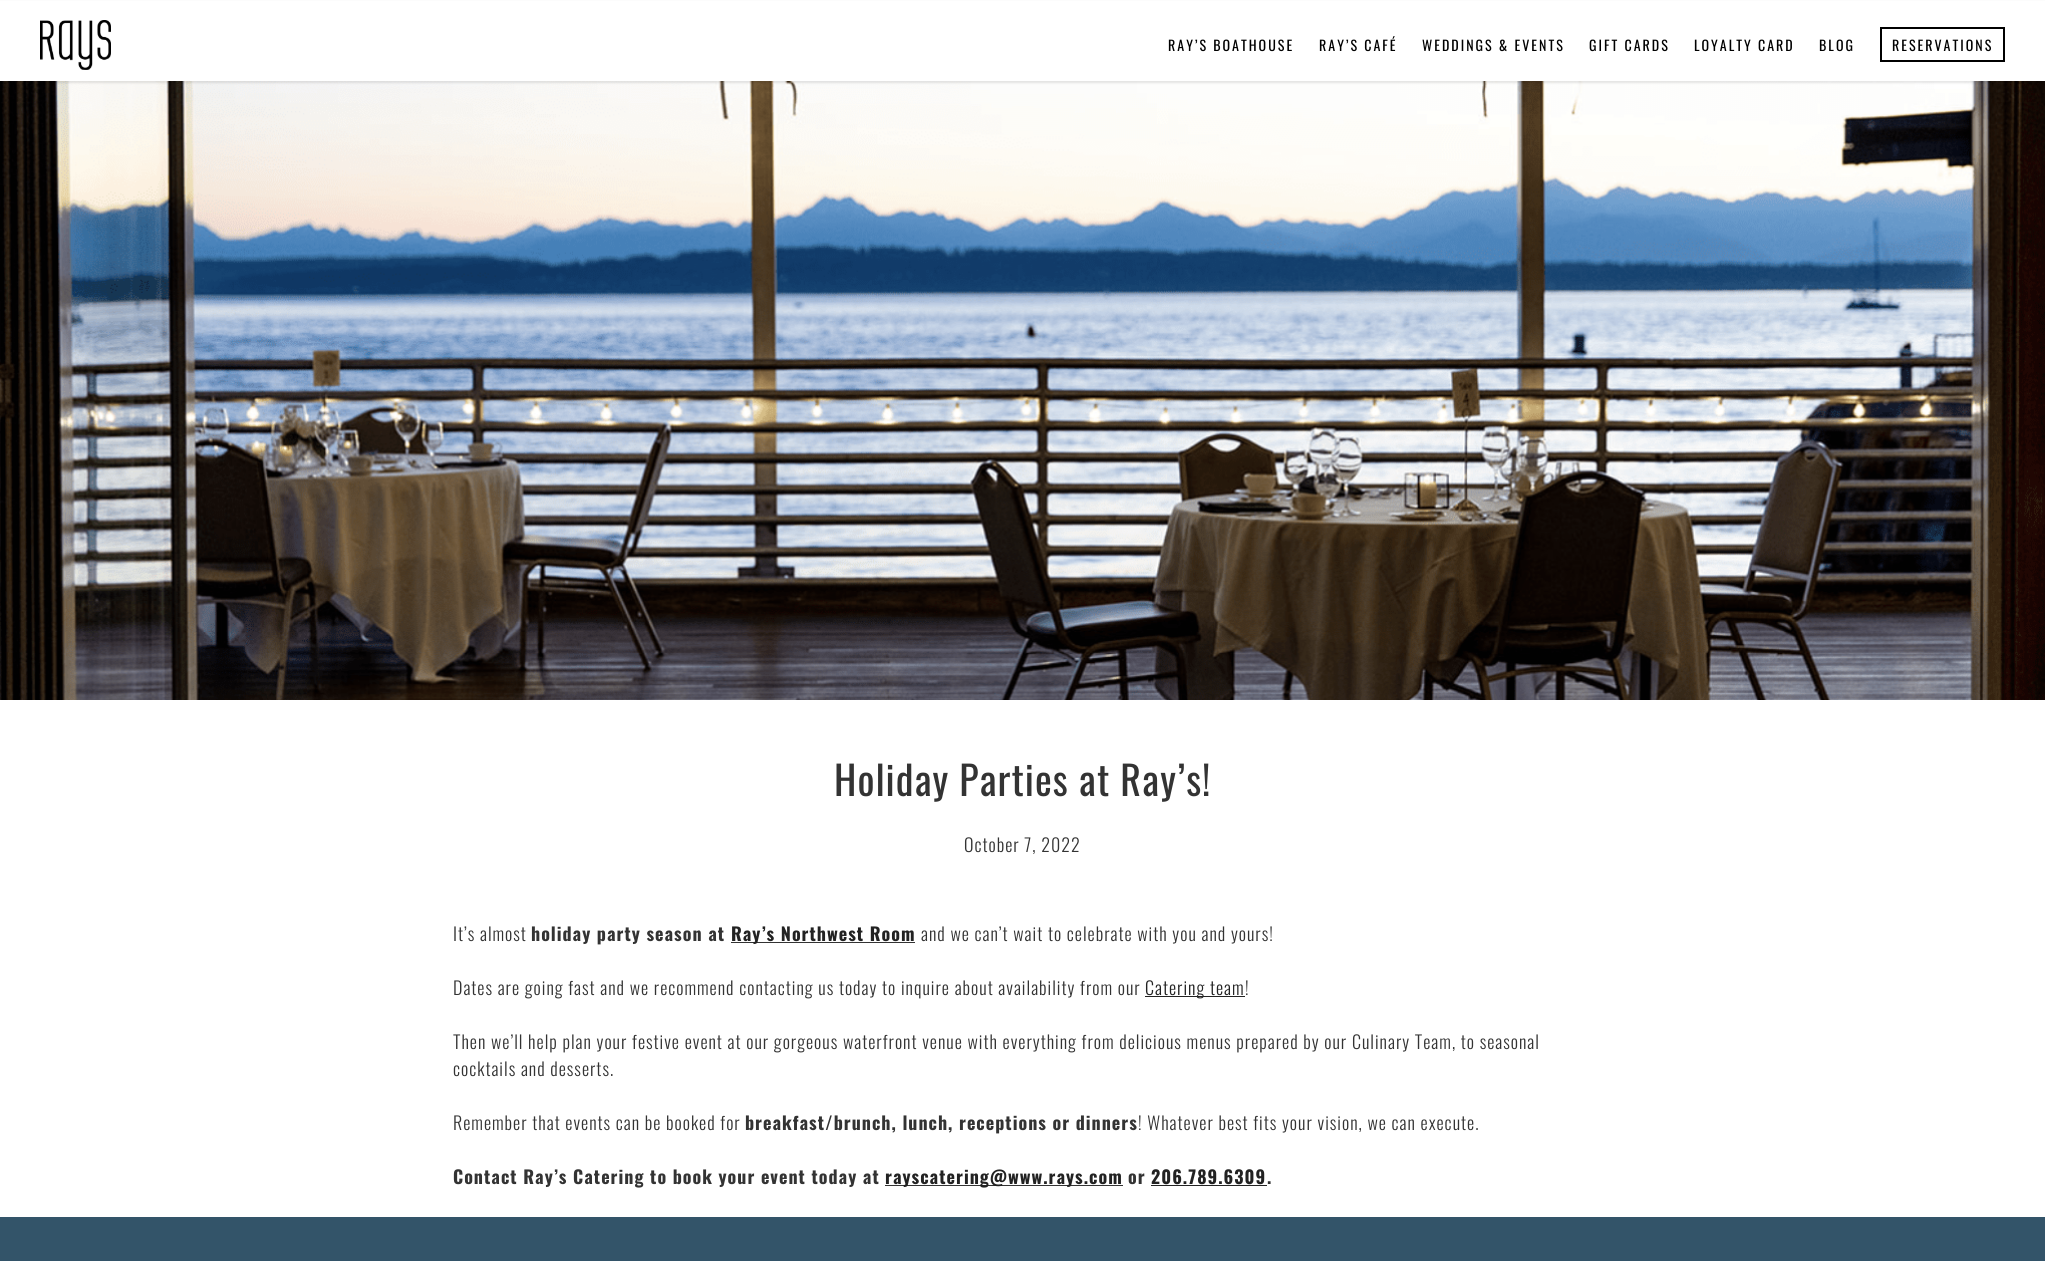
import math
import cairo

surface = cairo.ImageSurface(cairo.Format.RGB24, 2045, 1261)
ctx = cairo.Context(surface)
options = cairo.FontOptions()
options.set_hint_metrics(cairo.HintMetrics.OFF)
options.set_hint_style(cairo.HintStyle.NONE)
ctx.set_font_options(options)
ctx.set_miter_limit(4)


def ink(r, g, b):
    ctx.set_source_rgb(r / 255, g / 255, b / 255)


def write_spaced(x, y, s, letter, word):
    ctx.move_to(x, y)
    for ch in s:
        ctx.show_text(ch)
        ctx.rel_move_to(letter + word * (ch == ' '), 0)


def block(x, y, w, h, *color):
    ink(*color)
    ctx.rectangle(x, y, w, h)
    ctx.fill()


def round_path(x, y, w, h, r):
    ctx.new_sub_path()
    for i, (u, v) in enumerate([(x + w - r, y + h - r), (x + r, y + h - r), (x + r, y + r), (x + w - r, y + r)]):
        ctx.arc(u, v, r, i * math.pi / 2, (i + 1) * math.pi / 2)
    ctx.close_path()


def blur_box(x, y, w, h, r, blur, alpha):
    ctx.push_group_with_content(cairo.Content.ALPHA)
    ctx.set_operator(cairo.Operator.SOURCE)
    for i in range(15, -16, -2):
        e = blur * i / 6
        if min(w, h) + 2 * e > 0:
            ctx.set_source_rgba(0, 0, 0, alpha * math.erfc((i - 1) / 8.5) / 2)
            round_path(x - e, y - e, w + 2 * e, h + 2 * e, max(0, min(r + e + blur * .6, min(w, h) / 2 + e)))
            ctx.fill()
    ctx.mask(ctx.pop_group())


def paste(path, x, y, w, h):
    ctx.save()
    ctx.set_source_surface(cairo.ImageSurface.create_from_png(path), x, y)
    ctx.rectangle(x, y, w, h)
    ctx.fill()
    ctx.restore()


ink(255, 255, 255)
ctx.paint()
paste("pic2.png", 0, 81, 2045, 619)
ink(0, 0, 0)
blur_box(0, 2, 2045, 81, 0, 1, 0.1)
block(0, 1, 2045, 80, 255, 255, 255)
paste("pic1.png", 40, 20, 71, 50)
ctx.select_font_face("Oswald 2")
ctx.set_font_size(14)
ink(0, 0, 0)
write_spaced(1168, 51, "RAY’S BOATHOUSE", 2, 0)
write_spaced(1319, 51, "RAY’S CAFÉ", 2, 0)
write_spaced(1422, 51, "WEDDINGS & EVENTS", 2, 0)
write_spaced(1589, 51, "GIFT CARDS", 2, 0)
write_spaced(1694, 51, "LOYALTY CARD", 2, 0)
write_spaced(1819, 51, "BLOG", 2, 0)
ctx.rectangle(1881, 28, 123, 33)
ctx.stroke()
write_spaced(1892, 51, "RESERVATIONS", 2, 0)
ctx.select_font_face("Oswald")
ctx.set_font_size(40)
ink(51, 51, 51)
write_spaced(834, 796, "Holiday Parties at Ray’s!", 1, 0)
ctx.select_font_face("Oswald Light")
ctx.set_font_size(18)
write_spaced(964, 852, "October 7, 2022", 1, 0)
write_spaced(453, 941, "It’s almost", 1, 0)
ctx.select_font_face("Oswald", cairo.FontSlant.NORMAL, cairo.FontWeight.BOLD)
write_spaced(531, 941, "holiday party season at", 1, 0)
block(731, 942, 184, 1, 51, 51, 51)
ink(34, 34, 34)
write_spaced(731, 941, "Ray’s Northwest Room", 1, 0)
ctx.select_font_face("Oswald Light")
ink(51, 51, 51)
write_spaced(921, 941, "and we can’t wait to celebrate with you and yours!", 1, 0)
write_spaced(453, 995, "Dates are going fast and we recommend contacting us today to inquire about availability from our", 1, 0)
block(1145, 996, 100, 1, 34, 34, 34)
write_spaced(1145, 995, "Catering team", 1, 0)
ink(51, 51, 51)
write_spaced(1245, 995, "!", 1, 0)
write_spaced(453, 1049, "Then we’ll help plan your festive event at our gorgeous waterfront venue with everything from delicious menus prepared by our Culinary Team, to seasonal", 1, 0)
write_spaced(453, 1076, "cocktails and desserts.", 1, 0)
write_spaced(453, 1130, "Remember that events can be booked for", 1, 0)
ctx.select_font_face("Oswald", cairo.FontSlant.NORMAL, cairo.FontWeight.BOLD)
write_spaced(745, 1130, "breakfast/brunch, lunch, receptions or dinners", 1, 0)
ctx.select_font_face("Oswald Light")
write_spaced(1138, 1130, "! Whatever best fits your vision, we can execute.", 1, 0)
ctx.select_font_face("Oswald", cairo.FontSlant.NORMAL, cairo.FontWeight.BOLD)
write_spaced(453, 1184, "Contact Ray’s Catering to book your event today at", 1, 0)
block(885, 1185, 238, 1, 51, 51, 51)
ink(34, 34, 34)
write_spaced(885, 1184, "rayscatering@www.rays.com", 1, 0)
ink(51, 51, 51)
write_spaced(1128, 1184, "or", 1, 0)
ink(34, 34, 34)
write_spaced(1151, 1184, "206.789.6309", 1, 0)
ink(51, 51, 51)
write_spaced(1267, 1184, ".", 1, 0)
block(1151, 1185, 116, 1, 34, 34, 34)
block(0, 1217, 2045, 44, 51, 84, 105)
surface.write_to_png("screenshot.png")
